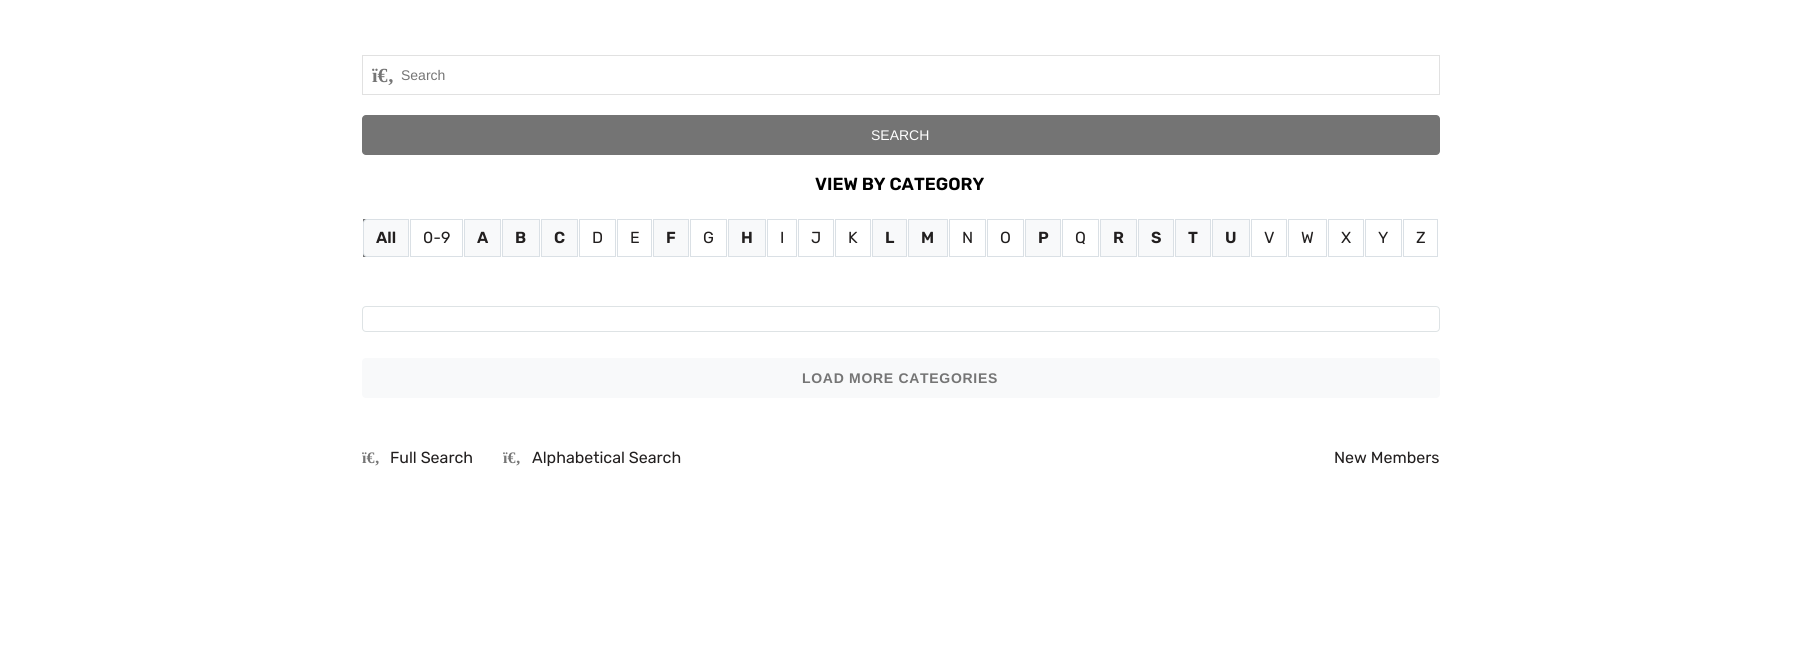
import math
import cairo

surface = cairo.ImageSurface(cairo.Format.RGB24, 1801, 664)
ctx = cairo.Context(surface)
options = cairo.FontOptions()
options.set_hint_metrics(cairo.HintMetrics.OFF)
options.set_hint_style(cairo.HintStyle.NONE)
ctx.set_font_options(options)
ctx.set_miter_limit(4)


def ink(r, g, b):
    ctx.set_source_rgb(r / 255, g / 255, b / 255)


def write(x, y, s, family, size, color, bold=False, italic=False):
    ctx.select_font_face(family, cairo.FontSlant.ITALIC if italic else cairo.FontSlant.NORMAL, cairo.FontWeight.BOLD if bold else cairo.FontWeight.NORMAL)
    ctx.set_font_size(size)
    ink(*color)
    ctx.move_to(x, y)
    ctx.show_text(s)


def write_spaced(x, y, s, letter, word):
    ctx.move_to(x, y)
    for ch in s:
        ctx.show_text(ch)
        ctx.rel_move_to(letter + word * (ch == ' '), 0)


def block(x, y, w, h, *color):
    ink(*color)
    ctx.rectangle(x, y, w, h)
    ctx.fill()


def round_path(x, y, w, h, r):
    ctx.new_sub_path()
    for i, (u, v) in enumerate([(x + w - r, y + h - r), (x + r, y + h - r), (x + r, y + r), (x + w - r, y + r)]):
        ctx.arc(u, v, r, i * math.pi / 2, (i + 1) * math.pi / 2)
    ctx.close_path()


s1 = dict(family="Liberation Serif", size=20, color=(117, 117, 117), bold=True)
s2 = dict(family="Liberation Sans", size=14, color=(117, 117, 117))
s3 = dict(family="Liberation Sans", size=14, color=(255, 255, 255))
s4 = dict(family="Rubik SemiBold", size=17.5, color=(0, 0, 0))
s5 = dict(family="Rubik SemiBold", size=16, color=(34, 31, 31))
s6 = dict(family="Rubik", size=16, color=(34, 31, 31))
s7 = dict(family="Liberation Serif", size=16, color=(117, 117, 117), bold=True)

ink(255, 255, 255)
ctx.paint()
ctx.rectangle(362.5, 55.5, 1077, 39)
ink(225, 225, 225)
ctx.set_line_width(1)
ctx.stroke()
write(372, 82, "ï€‚", **s1)
write(401, 80, "Search", **s2)
ink(116, 116, 116)
round_path(362, 115, 1078, 40, 4)
ctx.fill()
write(871, 140, "SEARCH", **s3)
write(815, 190, "VIEW BY CATEGORY", **s4)
block(363, 219, 4, 38, 113, 113, 113)
ink(248, 249, 250)
ctx.new_path()
ctx.move_to(367, 219.5)
ctx.line_to(408.5, 219.5)
ctx.line_to(408.5, 256.5)
ctx.line_to(367, 256.5)
ctx.curve_to(365, 256.5, 363.5, 255, 363.5, 253)
ctx.line_to(363.5, 223)
ctx.curve_to(363.5, 221, 365, 219.5, 367, 219.5)
ctx.close_path()
ctx.fill_preserve()
ink(218, 224, 229)
ctx.stroke()
write(376, 243, "All", **s5)
ctx.rectangle(410.5, 219.5, 52, 37)
ink(218, 224, 229)
ctx.stroke()
write(423, 243, "0-9", **s6)
ink(248, 249, 250)
ctx.rectangle(464.5, 219.5, 36, 37)
ctx.fill_preserve()
ink(218, 224, 229)
ctx.stroke()
write(477, 243, "A", **s5)
ink(248, 249, 250)
ctx.rectangle(502.5, 219.5, 37, 37)
ctx.fill_preserve()
ink(218, 224, 229)
ctx.stroke()
write(515, 243, "B", **s5)
ink(248, 249, 250)
ctx.rectangle(541.5, 219.5, 36, 37)
ctx.fill_preserve()
ink(218, 224, 229)
ctx.stroke()
write(554, 243, "C", **s5)
ctx.rectangle(579.5, 219.5, 36, 37)
ink(218, 224, 229)
ctx.stroke()
write(592, 243, "D", **s6)
ctx.rectangle(617.5, 219.5, 34, 37)
ink(218, 224, 229)
ctx.stroke()
write(630, 243, "E", **s6)
ink(248, 249, 250)
ctx.rectangle(653.5, 219.5, 35, 37)
ctx.fill_preserve()
ink(218, 224, 229)
ctx.stroke()
write(666, 243, "F", **s5)
ctx.rectangle(690.5, 219.5, 36, 37)
ink(218, 224, 229)
ctx.stroke()
write(703, 243, "G", **s6)
ink(248, 249, 250)
ctx.rectangle(728.5, 219.5, 37, 37)
ctx.fill_preserve()
ink(218, 224, 229)
ctx.stroke()
write(741, 243, "H", **s5)
ctx.rectangle(767.5, 219.5, 29, 37)
ink(218, 224, 229)
ctx.stroke()
write(780, 243, "I", **s6)
ctx.rectangle(798.5, 219.5, 35, 37)
ink(218, 224, 229)
ctx.stroke()
write(811, 243, "J", **s6)
ctx.rectangle(835.5, 219.5, 35, 37)
ink(218, 224, 229)
ctx.stroke()
write(848, 243, "K", **s6)
ink(248, 249, 250)
ctx.rectangle(872.5, 219.5, 34, 37)
ctx.fill_preserve()
ink(218, 224, 229)
ctx.stroke()
write(885, 243, "L", **s5)
ink(248, 249, 250)
ctx.rectangle(908.5, 219.5, 39, 37)
ctx.fill_preserve()
ink(218, 224, 229)
ctx.stroke()
write(921, 243, "M", **s5)
ctx.rectangle(949.5, 219.5, 36, 37)
ink(218, 224, 229)
ctx.stroke()
write(962, 243, "N", **s6)
ctx.rectangle(987.5, 219.5, 36, 37)
ink(218, 224, 229)
ctx.stroke()
write(1000, 243, "O", **s6)
ink(248, 249, 250)
ctx.rectangle(1025.5, 219.5, 35, 37)
ctx.fill_preserve()
ink(218, 224, 229)
ctx.stroke()
write(1038, 243, "P", **s5)
ctx.rectangle(1062.5, 219.5, 36, 37)
ink(218, 224, 229)
ctx.stroke()
write(1075, 243, "Q", **s6)
ink(248, 249, 250)
ctx.rectangle(1100.5, 219.5, 36, 37)
ctx.fill_preserve()
ink(218, 224, 229)
ctx.stroke()
write(1113, 243, "R", **s5)
ink(248, 249, 250)
ctx.rectangle(1138.5, 219.5, 35, 37)
ctx.fill_preserve()
ink(218, 224, 229)
ctx.stroke()
write(1151, 243, "S", **s5)
ink(248, 249, 250)
ctx.rectangle(1175.5, 219.5, 35, 37)
ctx.fill_preserve()
ink(218, 224, 229)
ctx.stroke()
write(1188, 243, "T", **s5)
ink(248, 249, 250)
ctx.rectangle(1212.5, 219.5, 37, 37)
ctx.fill_preserve()
ink(218, 224, 229)
ctx.stroke()
write(1225, 243, "U", **s5)
ctx.rectangle(1251.5, 219.5, 35, 37)
ink(218, 224, 229)
ctx.stroke()
write(1264, 243, "V", **s6)
ctx.rectangle(1288.5, 219.5, 38, 37)
ink(218, 224, 229)
ctx.stroke()
write(1301, 243, "W", **s6)
ctx.rectangle(1328.5, 219.5, 35, 37)
ink(218, 224, 229)
ctx.stroke()
write(1341, 243, "X", **s6)
ctx.rectangle(1365.5, 219.5, 36, 37)
ink(218, 224, 229)
ctx.stroke()
write(1378, 243, "Y", **s6)
ctx.rectangle(1403.5, 219.5, 34, 37)
ink(218, 224, 229)
ctx.stroke()
write(1416, 243, "Z", **s6)
round_path(362.5, 306.5, 1077, 25, 3.5)
ink(222, 227, 229)
ctx.stroke()
ink(248, 249, 250)
round_path(362, 358, 1078, 40, 4)
ctx.fill()
ctx.select_font_face("Liberation Sans", cairo.FontSlant.NORMAL, cairo.FontWeight.BOLD)
ctx.set_font_size(14)
ink(117, 117, 117)
write_spaced(802, 383, "LOAD MORE CATEGORIES", 0.7, 0)
write(362, 463, "ï€‚", **s7)
write(390, 463, "Full Search", **s6)
write(503, 463, "ï€‚", **s7)
write(532, 463, "Alphabetical Search", **s6)
write(1334, 463, "New Members", **s6)
surface.write_to_png("screenshot.png")
